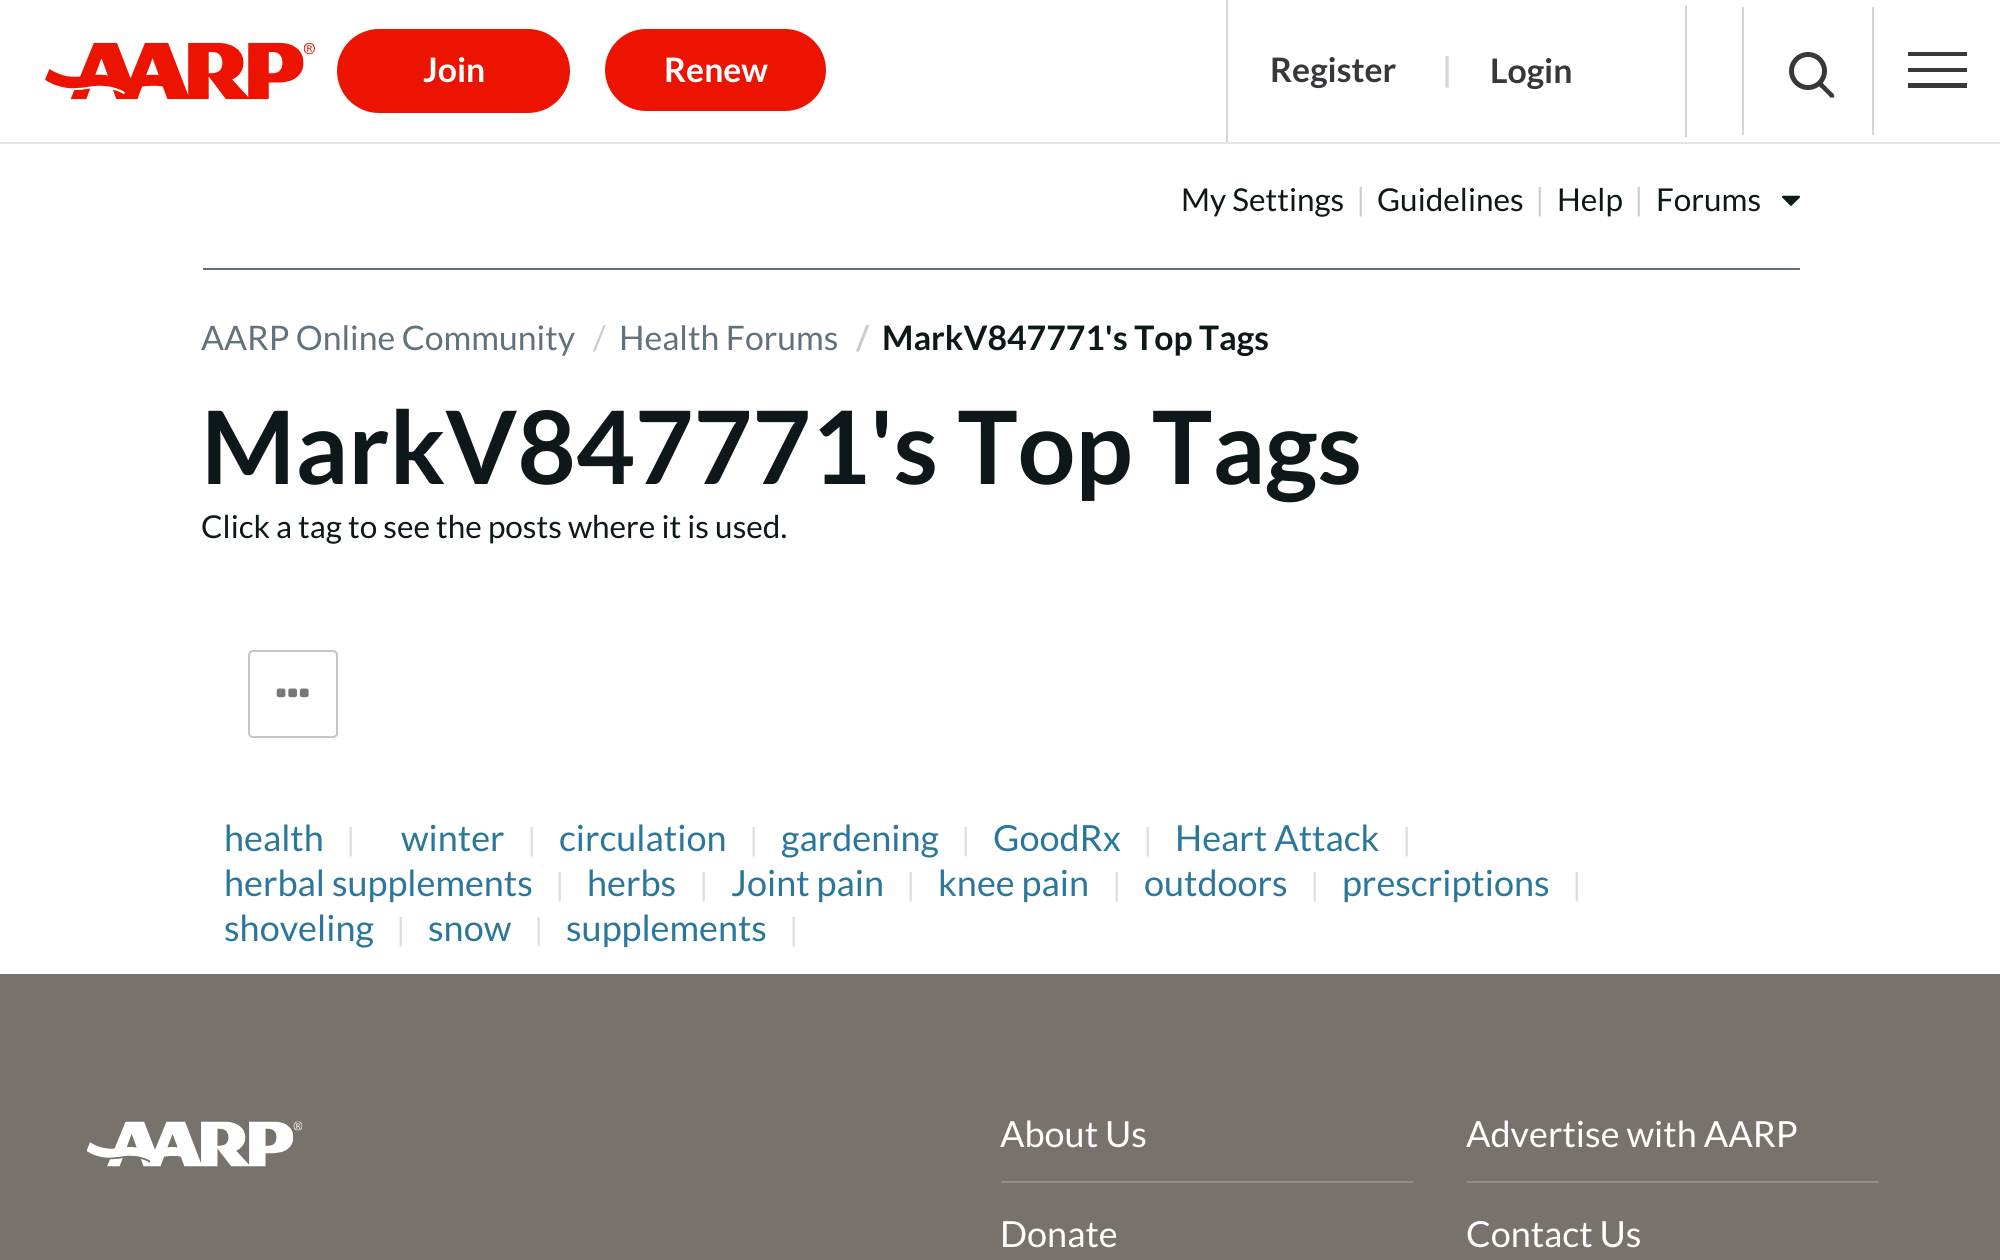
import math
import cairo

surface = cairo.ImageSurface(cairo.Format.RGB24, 2000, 1260)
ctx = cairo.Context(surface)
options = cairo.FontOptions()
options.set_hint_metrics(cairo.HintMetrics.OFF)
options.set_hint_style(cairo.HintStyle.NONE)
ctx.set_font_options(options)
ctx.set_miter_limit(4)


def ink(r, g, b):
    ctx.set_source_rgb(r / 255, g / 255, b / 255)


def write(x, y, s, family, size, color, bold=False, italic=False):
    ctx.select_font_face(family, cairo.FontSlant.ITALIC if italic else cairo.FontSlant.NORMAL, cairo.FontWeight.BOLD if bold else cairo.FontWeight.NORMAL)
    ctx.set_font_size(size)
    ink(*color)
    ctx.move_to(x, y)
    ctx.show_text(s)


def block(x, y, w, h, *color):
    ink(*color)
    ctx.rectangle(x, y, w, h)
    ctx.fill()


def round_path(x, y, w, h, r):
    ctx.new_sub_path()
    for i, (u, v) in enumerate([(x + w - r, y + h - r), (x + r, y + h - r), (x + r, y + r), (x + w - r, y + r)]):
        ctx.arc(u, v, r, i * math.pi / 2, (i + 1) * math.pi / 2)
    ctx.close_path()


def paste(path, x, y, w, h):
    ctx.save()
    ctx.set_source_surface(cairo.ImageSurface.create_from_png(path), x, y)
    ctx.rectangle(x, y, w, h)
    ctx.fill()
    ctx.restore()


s1 = dict(family="Lato", size=33.75, color=(255, 255, 255), bold=True)
s2 = dict(family="Lato", size=33.75, color=(55, 56, 61), bold=True)
s3 = dict(family="Lato", size=33.75, color=(213, 213, 213), bold=True)
s4 = dict(family="Lato", size=31.5, color=(14, 23, 25))
s5 = dict(family="Lato", size=31.5, color=(204, 204, 204))
s6 = dict(family="Lato", size=33.75, color=(98, 114, 123))
s7 = dict(family="Lato", size=33.75, color=(204, 204, 204))
s8 = dict(family="Lato", size=33.75, color=(204, 204, 204), bold=True)
s9 = dict(family="Lato", size=33.75, color=(14, 23, 25), bold=True)
s10 = dict(family="Lato", size=101.25, color=(14, 23, 25), bold=True)
s11 = dict(family="Lato", size=36, color=(43, 119, 155))
s12 = dict(family="Lato", size=31.5, color=(216, 221, 223))
s13 = dict(family="Lato", size=36, color=(255, 255, 255))

ink(255, 255, 255)
ctx.paint()
block(0, 142, 2000, 2, 229, 229, 229)
paste("pic1.png", 45, 42, 270, 58)
ink(236, 19, 0)
round_path(336, 28, 235, 86, 43)
ctx.fill_preserve()
ink(255, 255, 255)
ctx.stroke()
write(423, 82, "Join", **s1)
ink(236, 19, 0)
round_path(604, 28, 223, 84, 42)
ctx.fill_preserve()
ink(255, 255, 255)
ctx.stroke()
write(664, 82, "Renew", **s1)
block(1226, 0, 2, 142, 213, 213, 213)
write(1270, 82, "Register", **s2)
write(1442, 82, "|", **s3)
block(1685, 5, 2, 132, 213, 213, 213)
write(1490, 83, "Login", **s2)
block(1872, 7, 2, 128, 213, 213, 213)
block(1742, 7, 2, 128, 213, 213, 213)
ctx.new_path()
ctx.arc(1808, 71, 16.5, 0, 2 * math.pi)
ink(55, 56, 61)
ctx.set_line_width(5)
ctx.stroke()
ctx.new_path()
ctx.move_to(1821, 81.5)
ctx.line_to(1834.5, 95)
ctx.line_to(1831, 98)
ctx.line_to(1817.5, 84.5)
ctx.close_path()
ctx.fill()
ctx.new_path()
ctx.move_to(1831, 93.5)
ctx.line_to(1834.5, 96.5)
ctx.line_to(1833, 98)
ctx.line_to(1829.5, 95)
ctx.close_path()
ctx.move_to(1821, 81.5)
ctx.line_to(1824, 84.5)
ctx.line_to(1821, 88)
ctx.line_to(1817.5, 84.5)
ctx.close_path()
ctx.fill()
block(1908, 52, 59, 4, 55, 56, 61)
block(1908, 68, 59, 4, 55, 56, 61)
block(1908, 83, 59, 5, 55, 56, 61)
write(1181, 211, "My Settings", **s4)
write(1356, 211, "|", **s5)
write(1377, 211, "Guidelines", **s4)
write(1535, 211, "|", **s5)
write(1557, 211, "Help", **s4)
write(1634, 211, "|", **s5)
write(1656, 211, "Forums", **s4)
paste("pic2.png", 1782, 195, 18, 11)
block(203, 268, 1597, 2, 98, 114, 123)
write(201, 350, "AARP Online Community", **s6)
write(593, 350, "/", **s7)
write(619, 350, "Health Forums", **s6)
write(856, 350, "/", **s8)
write(882, 350, "MarkV847771's Top Tags", **s9)
write(201, 484, "MarkV847771's Top Tags", **s10)
write(201, 538, "Click a tag to see the posts where it is used.", **s4)
round_path(249, 651, 88, 86, 4)
ink(193, 199, 203)
ctx.set_line_width(2)
ctx.stroke()
paste("pic3.png", 276, 688, 33, 10)
write(224, 851, "health", **s11)
write(346, 851, "|", **s12)
write(401, 851, "winter", **s11)
write(527, 851, "|", **s12)
write(559, 851, "circulation", **s11)
write(749, 851, "|", **s12)
write(781, 851, "gardening", **s11)
write(961, 851, "|", **s12)
write(993, 851, "GoodRx", **s11)
write(1143, 851, "|", **s12)
write(1175, 851, "Heart Attack", **s11)
write(1402, 851, "|", **s12)
write(224, 896, "herbal supplements", **s11)
write(555, 896, "|", **s12)
write(587, 896, "herbs", **s11)
write(699, 896, "|", **s12)
write(731, 896, "Joint pain", **s11)
write(906, 896, "|", **s12)
write(938, 896, "knee pain", **s11)
write(1112, 896, "|", **s12)
write(1144, 896, "outdoors", **s11)
write(1310, 896, "|", **s12)
write(1342, 896, "prescriptions", **s11)
write(1572, 896, "|", **s12)
write(224, 941, "shoveling", **s11)
write(396, 941, "|", **s12)
write(428, 941, "snow", **s11)
write(534, 941, "|", **s12)
write(566, 941, "supplements", **s11)
write(789, 941, "|", **s12)
block(0, 974, 2000, 286, 119, 114, 107)
paste("pic4.png", 87, 1121, 216, 46)
block(1001, 1181, 412, 2, 146, 142, 137)
write(1000, 1147, "About Us", **s13)
write(1000, 1247, "Donate", **s13)
block(1467, 1181, 412, 2, 146, 142, 137)
write(1466, 1147, "Advertise with AARP", **s13)
write(1466, 1247, "Contact Us", **s13)
surface.write_to_png("screenshot.png")
